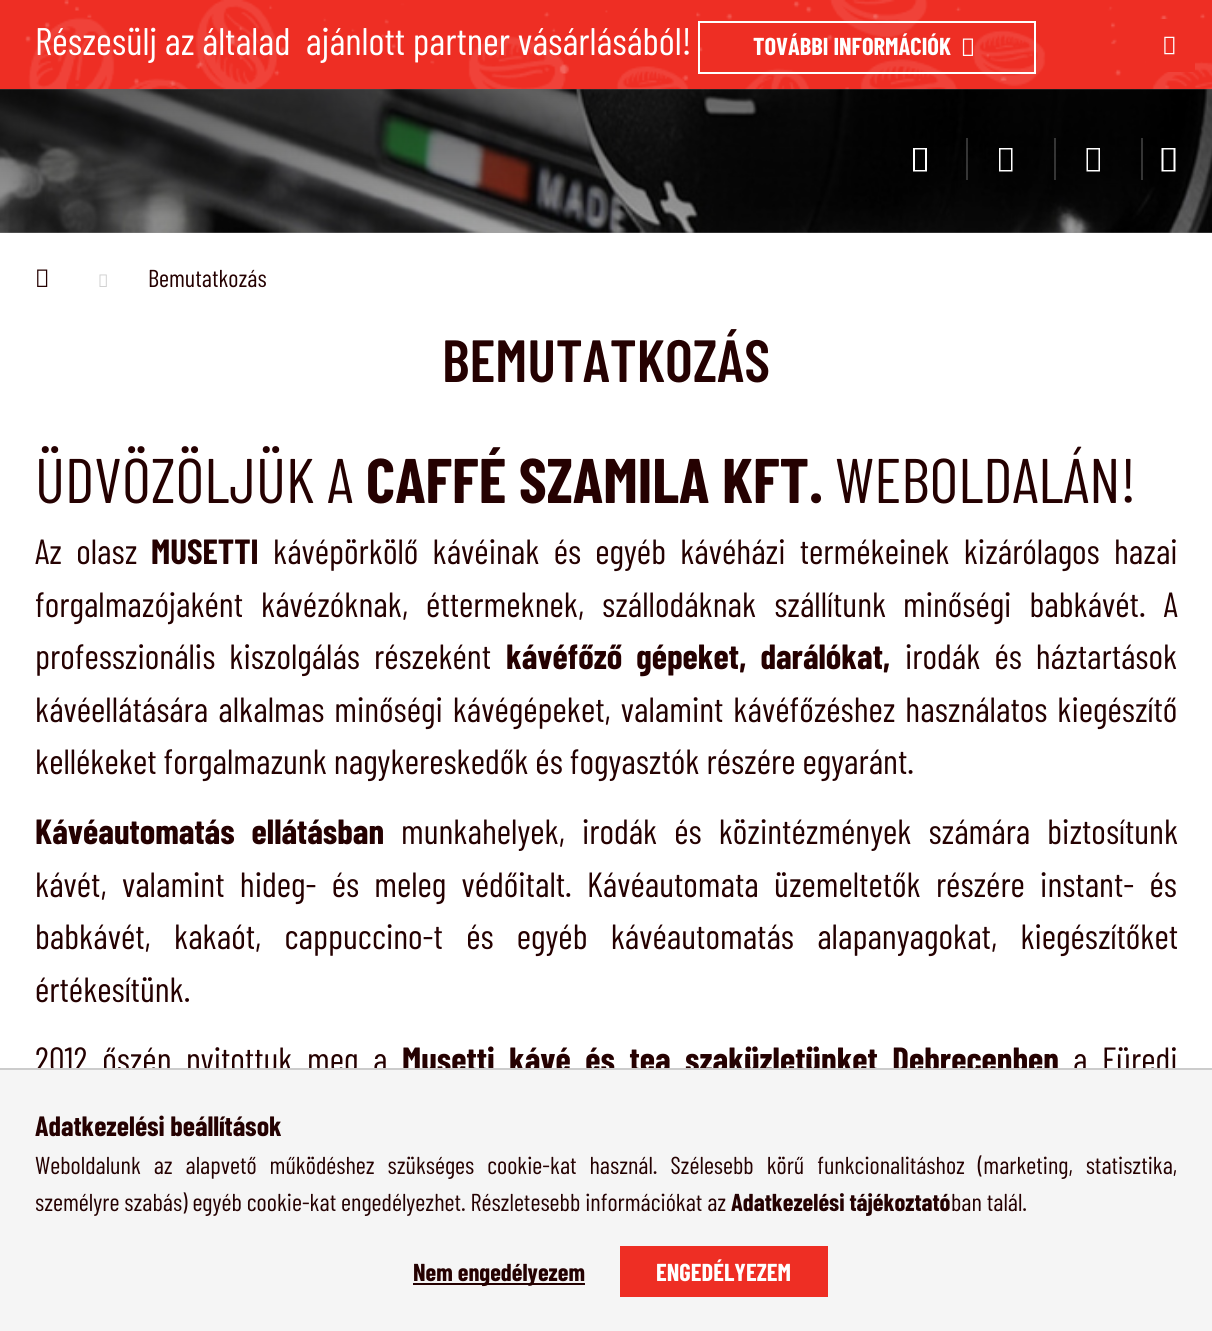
import math
import cairo

surface = cairo.ImageSurface(cairo.Format.RGB24, 1212, 1331)
ctx = cairo.Context(surface)
options = cairo.FontOptions()
options.set_hint_metrics(cairo.HintMetrics.OFF)
options.set_hint_style(cairo.HintStyle.NONE)
ctx.set_font_options(options)
ctx.set_miter_limit(4)


def ink(r, g, b):
    ctx.set_source_rgb(r / 255, g / 255, b / 255)


def write(x, y, s, family, size, color, bold=False, italic=False):
    ctx.select_font_face(family, cairo.FontSlant.ITALIC if italic else cairo.FontSlant.NORMAL, cairo.FontWeight.BOLD if bold else cairo.FontWeight.NORMAL)
    ctx.set_font_size(size)
    ink(*color)
    ctx.move_to(x, y)
    ctx.show_text(s)


def write_spaced(x, y, s, letter, word):
    ctx.move_to(x, y)
    for ch in s:
        ctx.show_text(ch)
        ctx.rel_move_to(letter + word * (ch == ' '), 0)


def block(x, y, w, h, *color):
    ink(*color)
    ctx.rectangle(x, y, w, h)
    ctx.fill()


def paste(path, x, y, w, h):
    ctx.save()
    ctx.set_source_surface(cairo.ImageSurface.create_from_png(path), x, y)
    ctx.rectangle(x, y, w, h)
    ctx.fill()
    ctx.restore()


s1 = dict(family="Barlow Condensed", size=38.5, color=(255, 255, 255))
s2 = dict(family="Barlow Condensed", size=24.5, color=(255, 255, 255), bold=True)
s3 = dict(family="Barlow Condensed", size=24.5, color=(37, 1, 1))
s4 = dict(family="Barlow Condensed SemiBold", size=59.5, color=(37, 1, 1))
s5 = dict(family="Barlow Condensed", size=63, color=(37, 1, 1))
s6 = dict(family="Barlow Condensed", size=63, color=(37, 1, 1), bold=True)
s7 = dict(family="Barlow Condensed", size=35, color=(37, 1, 1), bold=True)
s8 = dict(family="Barlow Condensed", size=35, color=(37, 1, 1))
s9 = dict(family="Barlow Condensed", size=28, color=(37, 1, 1), bold=True)
s10 = dict(family="Barlow Condensed", size=24.5, color=(37, 1, 1), bold=True)

ink(255, 255, 255)
ctx.paint()
block(0, 0, 1212, 89, 238, 46, 36)
paste("pic4.png", 0, 89, 1212, 144)
paste("pic1.png", 25, 0, 1187, 90)
write(35, 55, "Részesülj az általad  ajánlott partner vásárlásából!", **s1)
ctx.rectangle(699, 22, 336, 51)
ctx.stroke()
write(753, 55, "TOVÁBBI INFORMÁCIÓK", **s2)
paste("pic2.png", 962, 38, 11, 18)
block(1146, 19, 49, 53, 238, 46, 36)
paste("pic3.png", 1164, 36, 11, 19)
gradient = cairo.LinearGradient(606, 89, 606, 439)
gradient.add_color_stop_rgba(0, 0, 0, 0, 0.6)
gradient.add_color_stop_rgba(1, 0, 0, 0, 0)
ctx.set_source(gradient)
ctx.rectangle(0, 89, 1212, 144)
ctx.fill()
ink(255, 255, 255)
ctx.new_path()
ctx.move_to(913, 171.5)
ctx.line_to(913, 148)
ctx.line_to(927, 148)
ctx.line_to(927, 171.5)
ctx.close_path()
ctx.move_to(915, 170)
ctx.line_to(925, 170)
ctx.line_to(925, 149.5)
ctx.line_to(915, 149.5)
ctx.close_path()
ctx.fill()
ctx.set_source_rgba(1, 1, 1, 0.2)
ctx.rectangle(966, 138, 2, 42)
ctx.fill()
ink(255, 255, 255)
ctx.new_path()
ctx.move_to(999, 171.5)
ctx.line_to(999, 148)
ctx.line_to(1012.5, 148)
ctx.line_to(1012.5, 171.5)
ctx.close_path()
ctx.move_to(1000.5, 170)
ctx.line_to(1011, 170)
ctx.line_to(1011, 149.5)
ctx.line_to(1000.5, 149.5)
ctx.close_path()
ctx.fill()
ctx.set_source_rgba(1, 1, 1, 0.2)
ctx.rectangle(1054, 138, 2, 42)
ctx.fill()
ink(255, 255, 255)
ctx.new_path()
ctx.move_to(1086.5, 171.5)
ctx.line_to(1086.5, 148)
ctx.line_to(1100, 148)
ctx.line_to(1100, 171.5)
ctx.close_path()
ctx.move_to(1088, 170)
ctx.line_to(1098.5, 170)
ctx.line_to(1098.5, 149.5)
ctx.line_to(1088, 149.5)
ctx.close_path()
ctx.fill()
block(1141, 138, 2, 42, 53, 53, 53)
ink(255, 255, 255)
ctx.new_path()
ctx.move_to(1161.5, 171.5)
ctx.line_to(1161.5, 148)
ctx.line_to(1175.5, 148)
ctx.line_to(1175.5, 171.5)
ctx.close_path()
ctx.move_to(1163.5, 170)
ctx.line_to(1173.5, 170)
ctx.line_to(1173.5, 149.5)
ctx.line_to(1163.5, 149.5)
ctx.close_path()
ctx.fill()
paste("pic5.png", 37, 269, 11, 18)
paste("pic6.png", 99, 274, 8, 13)
write(148, 287, "Bemutatkozás", **s3)
write(442, 382, "BEMUTATKOZÁS", **s4)
write(35, 503, "ÜDVÖZÖLJÜK A", **s5)
write(366, 503, "CAFFÉ SZAMILA KFT.", **s6)
write(835, 503, "WEBOLDALÁN!", **s5)
ctx.set_font_size(35)
write_spaced(35, 564, "Az olasz", 0, 7.25)
write(151, 564, "MUSETTI", **s7)
ctx.select_font_face("Barlow Condensed")
write_spaced(273, 564, "kávépörkölő kávéinak és egyéb kávéházi termékeinek kizárólagos hazai", 0, 7.25)
write_spaced(35, 617, "forgalmazójaként kávézóknak, éttermeknek, szállodáknak szállítunk", 0, 11)
write_spaced(903, 617, "minőségi babkávét. A", 0, 11)
write_spaced(35, 669, "professzionális kiszolgálás részeként", 0, 7)
ctx.select_font_face("Barlow Condensed", cairo.FontSlant.NORMAL, cairo.FontWeight.BOLD)
write_spaced(506, 669, "kávéfőző gépeket, darálókat,", 0, 7)
ctx.select_font_face("Barlow Condensed")
write_spaced(905, 669, "irodák és háztartások", 0, 7)
write_spaced(35, 722, "kávéellátására alkalmas minőségi kávégépeket, valamint kávéfőzéshez használatos kiegészítő", 0, 3)
write(35, 774, "kellékeket forgalmazunk nagykereskedők és fogyasztók részére egyaránt.", **s8)
ctx.select_font_face("Barlow Condensed", cairo.FontSlant.NORMAL, cairo.FontWeight.BOLD)
write_spaced(35, 844, "Kávéautomatás ellátásban", 0, 10)
ctx.select_font_face("Barlow Condensed")
write_spaced(401, 844, "munkahelyek, irodák és közintézmények számára biztosítunk", 0, 10)
write_spaced(35, 897, "kávét, valamint hideg- és meleg védőitalt. Kávéautomata üzemeltetők részére instant- és", 0, 8.25)
write_spaced(35, 949, "babkávét, kakaót, cappuccino-t és egyéb kávéautomatás alapanyagokat, kiegészítőket", 0, 16.25)
write(35, 1002, "értékesítünk.", **s8)
write_spaced(35, 1072, "2012 őszén nyitottuk meg a", 0, 7.5)
ctx.select_font_face("Barlow Condensed", cairo.FontSlant.NORMAL, cairo.FontWeight.BOLD)
write_spaced(402, 1072, "Musetti kávé és tea szaküzletünket Debrecenben", 0, 7.5)
ctx.select_font_face("Barlow Condensed")
write_spaced(1073, 1072, "a Füredi", 0, 7.5)
block(0, 1070, 1212, 261, 245, 245, 245)
block(0, 1068, 1212, 2, 204, 204, 204)
write(35, 1136, "Adatkezelési beállítások", **s9)
ctx.select_font_face("Barlow Condensed")
ctx.set_font_size(24.5)
write_spaced(35, 1174, "Weboldalunk az alapvető működéshez szükséges cookie-kat használ. Szélesebb körű funkcionalitáshoz (marketing, statisztika,", 0, 8)
write(35, 1211, "személyre szabás) egyéb cookie-kat engedélyezhet. Részletesebb információkat az", **s3)
write(731, 1211, "Adatkezelési tájékoztató", **s10)
write(951, 1211, "ban talál.", **s3)
block(413, 1283, 172, 2, 37, 1, 1)
write(413, 1281, "Nem engedélyezem", **s10)
block(620, 1246, 208, 51, 238, 46, 36)
write(656, 1281, "ENGEDÉLYEZEM", **s2)
surface.write_to_png("screenshot.png")
